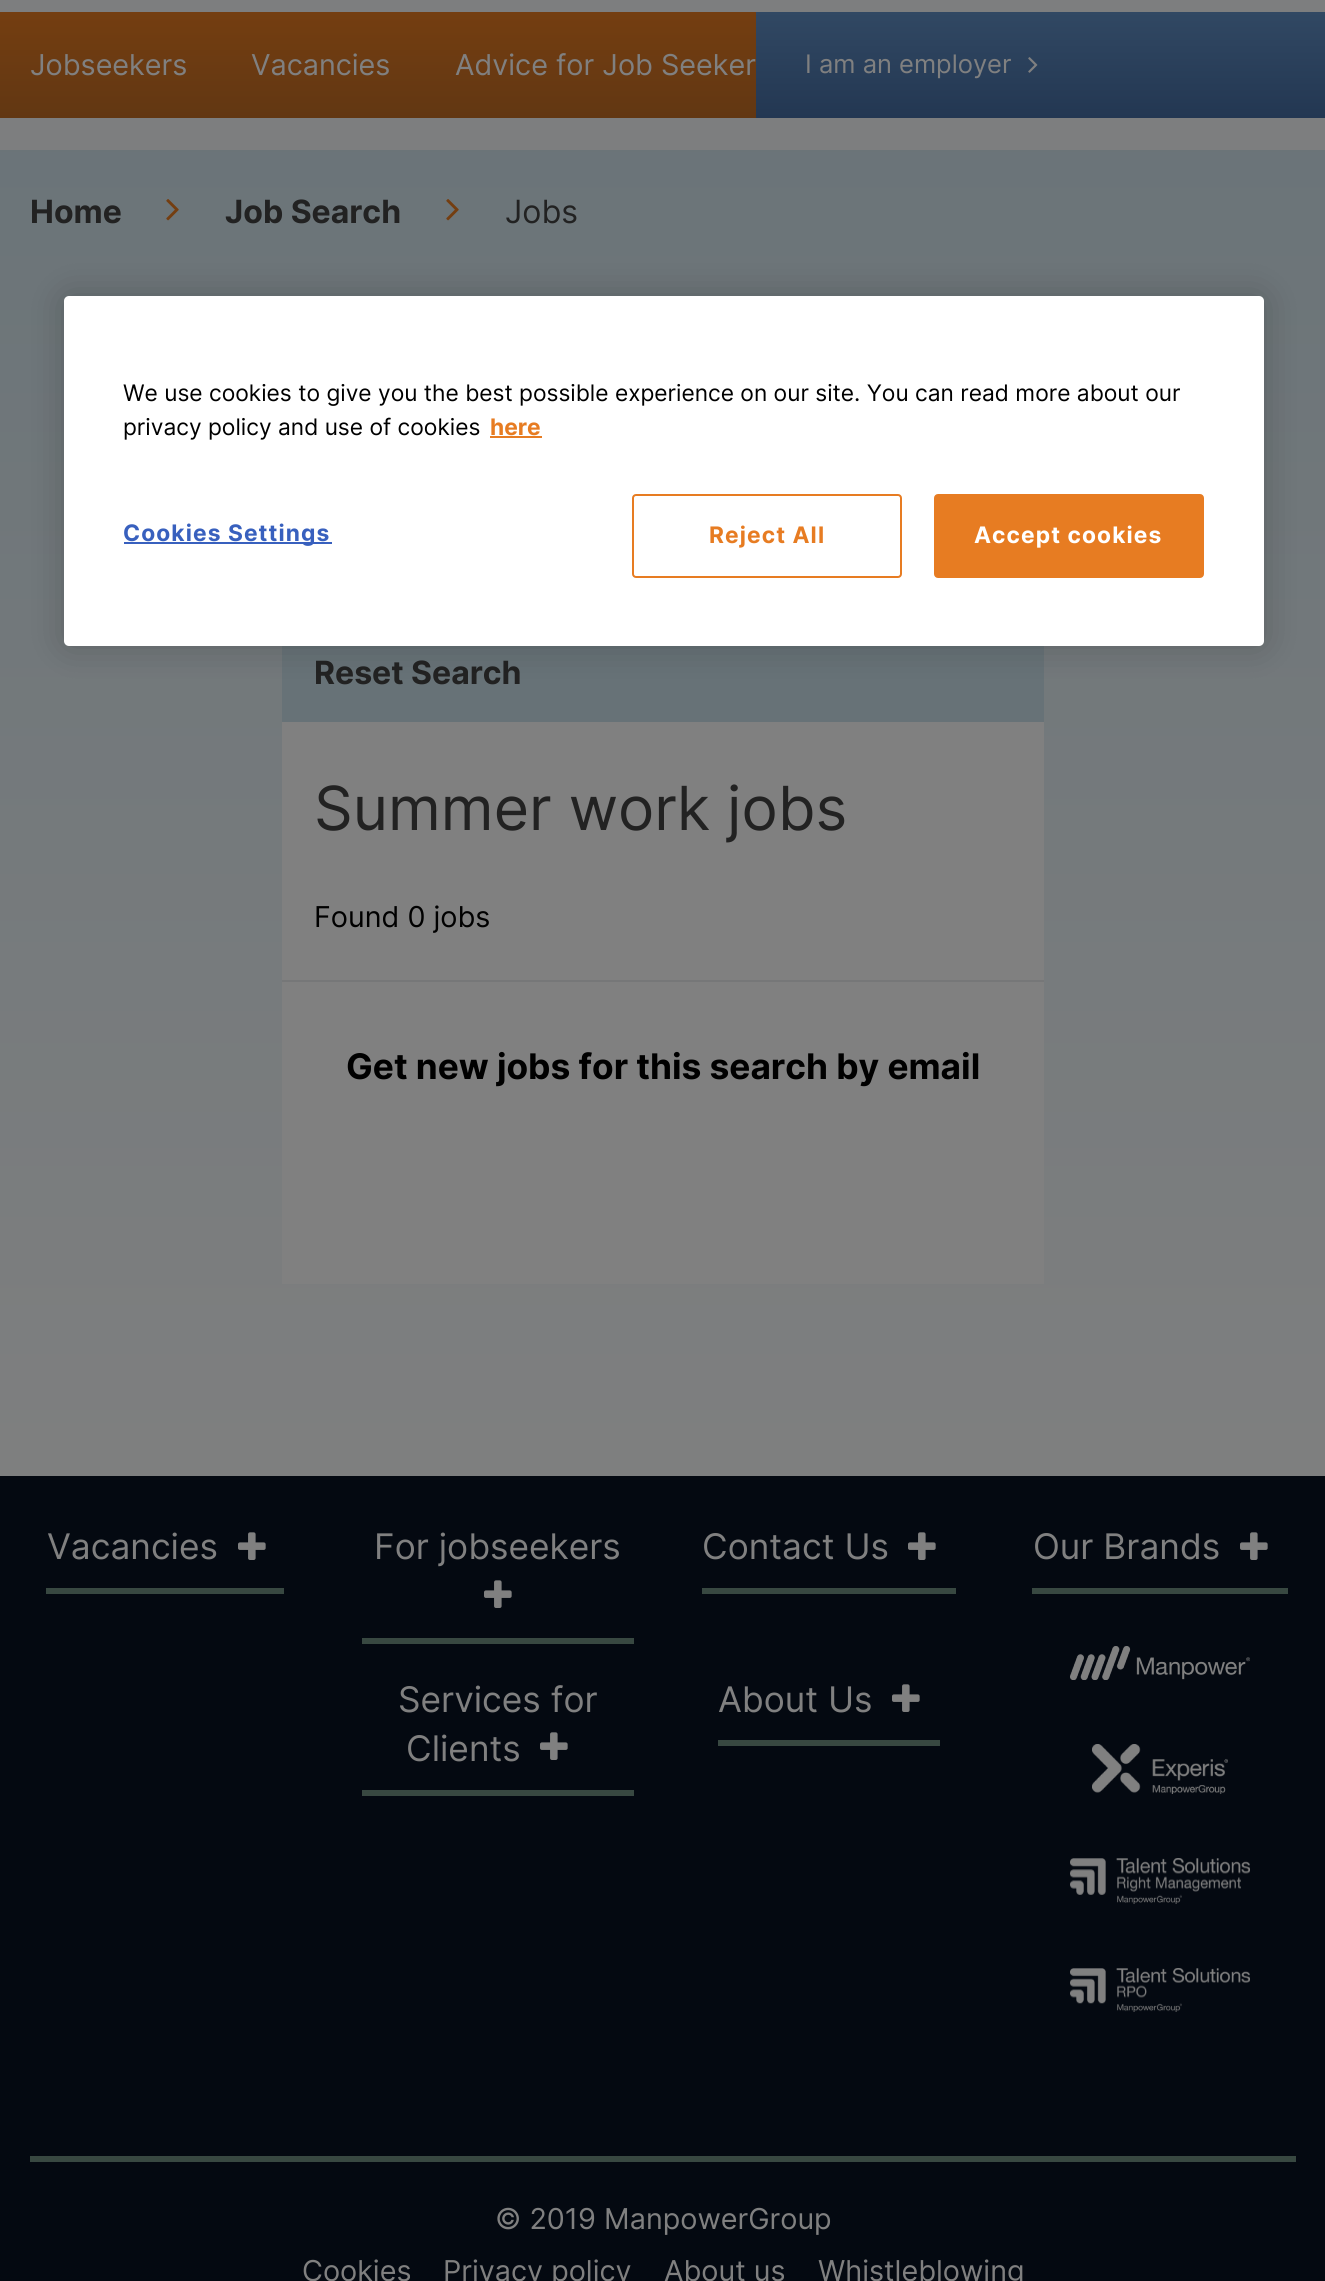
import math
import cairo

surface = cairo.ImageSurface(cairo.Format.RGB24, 1325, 2281)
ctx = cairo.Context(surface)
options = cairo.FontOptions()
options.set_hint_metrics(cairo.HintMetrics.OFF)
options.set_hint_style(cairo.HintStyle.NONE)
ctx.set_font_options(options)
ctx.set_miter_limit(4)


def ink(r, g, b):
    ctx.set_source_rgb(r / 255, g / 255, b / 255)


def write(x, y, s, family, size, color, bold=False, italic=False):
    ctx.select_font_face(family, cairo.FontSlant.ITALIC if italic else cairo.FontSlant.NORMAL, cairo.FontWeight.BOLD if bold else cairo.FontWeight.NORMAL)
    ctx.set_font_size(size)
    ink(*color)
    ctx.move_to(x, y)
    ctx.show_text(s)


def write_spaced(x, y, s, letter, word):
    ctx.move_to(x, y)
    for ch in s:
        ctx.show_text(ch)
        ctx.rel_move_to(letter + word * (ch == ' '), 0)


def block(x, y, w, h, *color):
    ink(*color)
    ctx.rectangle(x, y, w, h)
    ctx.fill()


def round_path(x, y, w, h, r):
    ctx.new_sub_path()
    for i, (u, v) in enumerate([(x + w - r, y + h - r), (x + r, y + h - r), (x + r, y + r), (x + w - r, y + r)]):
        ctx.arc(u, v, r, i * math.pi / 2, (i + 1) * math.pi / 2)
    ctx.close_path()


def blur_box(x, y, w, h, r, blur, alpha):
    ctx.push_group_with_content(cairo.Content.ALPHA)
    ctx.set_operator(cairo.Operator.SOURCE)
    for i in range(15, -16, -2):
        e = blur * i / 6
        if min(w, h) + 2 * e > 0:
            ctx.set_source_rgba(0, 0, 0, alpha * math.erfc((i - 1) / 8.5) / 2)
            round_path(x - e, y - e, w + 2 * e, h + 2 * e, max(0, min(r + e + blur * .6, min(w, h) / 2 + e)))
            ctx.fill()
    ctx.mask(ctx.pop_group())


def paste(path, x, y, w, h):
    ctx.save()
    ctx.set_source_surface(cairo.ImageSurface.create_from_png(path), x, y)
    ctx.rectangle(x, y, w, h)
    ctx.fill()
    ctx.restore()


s1 = dict(family="Inter", size=28.75, color=(128, 128, 128))
s2 = dict(family="Inter", size=25.5, color=(128, 128, 128))
s3 = dict(family="Inter", size=32, color=(34, 34, 34), bold=True)
s4 = dict(family="Inter", size=32, color=(34, 34, 34))
s5 = dict(family="Inter", size=60.75, color=(34, 34, 34))
s6 = dict(family="Inter", size=28.75, color=(0, 0, 0))
s7 = dict(family="Inter", size=35.25, color=(0, 0, 0), bold=True)
s8 = dict(family="Inter", size=35.25, color=(128, 128, 128))
s9 = dict(family="Inter", size=22.75, color=(0, 0, 0))
s10 = dict(family="Inter", size=22.75, color=(231, 124, 34), bold=True)

ink(255, 255, 255)
ctx.paint()
gradient = cairo.LinearGradient(663, -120, 663, 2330)
gradient.add_color_stop_rgba(0, 0.404, 0.447, 0.467, 1)
gradient.add_color_stop_rgba(0.7, 0.502, 0.502, 0.502, 1)
ctx.set_source(gradient)
ctx.rectangle(0, 150, 1325, 1326)
ctx.fill()
gradient = cairo.LinearGradient(663, -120, 663, 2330)
gradient.add_color_stop_rgba(0, 0.49, 0.494, 0.498, 1)
gradient.add_color_stop_rgba(0.7, 0.502, 0.502, 0.502, 1)
ctx.set_source(gradient)
ctx.rectangle(0, 0, 1325, 150)
ctx.fill()
gradient = cairo.LinearGradient(663, 12, 663, 118)
gradient.add_color_stop_rgba(0, 0.455, 0.243, 0.067, 1)
gradient.add_color_stop_rgba(1, 0.384, 0.216, 0.071, 1)
ctx.set_source(gradient)
ctx.rectangle(0, 12, 756, 106)
ctx.fill()
write(30, 75, "Jobseekers", **s1)
write(251, 75, "Vacancies", **s1)
write(455, 75, "Advice for Job Seeker", **s1)
gradient = cairo.LinearGradient(1041, 12, 1041, 118)
gradient.add_color_stop_rgba(0, 0.192, 0.282, 0.388, 1)
gradient.add_color_stop_rgba(1, 0.137, 0.216, 0.322, 1)
ctx.set_source(gradient)
ctx.rectangle(756, 12, 569, 106)
ctx.fill()
write(805, 73, "I am an employer", **s2)
paste("pic1.png", 1028, 57, 10, 16)
write(30, 223, "Home", **s3)
paste("pic2.png", 166, 199, 13, 22)
write(225, 223, "Job Search", **s3)
paste("pic2.png", 446, 199, 13, 22)
write(505, 223, "Jobs", **s4)
block(282, 722, 762, 562, 128, 128, 128)
block(282, 646, 762, 76, 103, 114, 119)
write(314, 684, "Reset Search", **s3)
write(314, 830, "Summer work jobs", **s5)
write(314, 927, "Found 0 jobs", **s6)
block(282, 980, 762, 2, 118, 119, 120)
write(346, 1079, "Get new jobs for this search by email", **s7)
block(0, 1476, 1325, 805, 4, 9, 17)
block(46, 1588, 238, 6, 56, 72, 65)
write(47, 1559, "Vacancies", **s8)
paste("pic3.png", 238, 1532, 28, 28)
block(362, 1638, 272, 6, 56, 72, 65)
write(374, 1559, "For jobseekers", **s8)
paste("pic3.png", 484, 1580, 28, 28)
block(702, 1588, 254, 6, 56, 72, 65)
write(702, 1559, "Contact Us", **s8)
paste("pic3.png", 908, 1532, 28, 28)
block(362, 1790, 272, 6, 56, 72, 65)
write(398, 1712, "Services for", **s8)
write(406, 1761, "Clients", **s8)
paste("pic3.png", 540, 1732, 28, 28)
block(718, 1740, 222, 6, 56, 72, 65)
write(718, 1712, "About Us", **s8)
paste("pic3.png", 892, 1684, 28, 28)
block(1032, 1588, 256, 6, 56, 72, 65)
write(1033, 1559, "Our Brands", **s8)
paste("pic3.png", 1240, 1532, 28, 28)
paste("pic4.png", 1070, 1646, 180, 34)
paste("pic5.png", 1092, 1744, 136, 50)
paste("pic6.png", 1070, 1858, 180, 46)
paste("pic7.png", 1070, 1968, 180, 44)
block(30, 2156, 1266, 6, 56, 72, 65)
write(495, 2229, "© 2019 ManpowerGroup", **s1)
write(302, 2281, "Cookies", **s1)
write(443, 2281, "Privacy policy", **s1)
write(664, 2281, "About us", **s1)
write(818, 2281, "Whistleblowing", **s1)
ink(0, 0, 0)
blur_box(64, 296, 1200, 350, 5, 18, 0.2)
ink(255, 255, 255)
round_path(64, 296, 1200, 350, 5)
ctx.fill()
write(123, 401, "We use cookies to give you the best possible experience on our site. You can read more about our", **s9)
write(123, 435, "privacy policy and use of cookies", **s9)
write(490, 435, "here", **s10)
block(490, 436, 52, 2, 231, 124, 34)
block(124, 542, 208, 2, 56, 96, 190)
write_spaced(123, 541, "Cookies Settings", 1.1, 0)
round_path(633, 495, 268, 82, 3)
ink(231, 124, 34)
ctx.stroke()
write_spaced(709, 543, "Reject All", 1.1, 0)
round_path(935, 495, 268, 82, 3)
ctx.fill_preserve()
ctx.stroke()
ink(255, 255, 255)
write_spaced(974, 543, "Accept cookies", 1.1, 0)
surface.write_to_png("screenshot.png")
